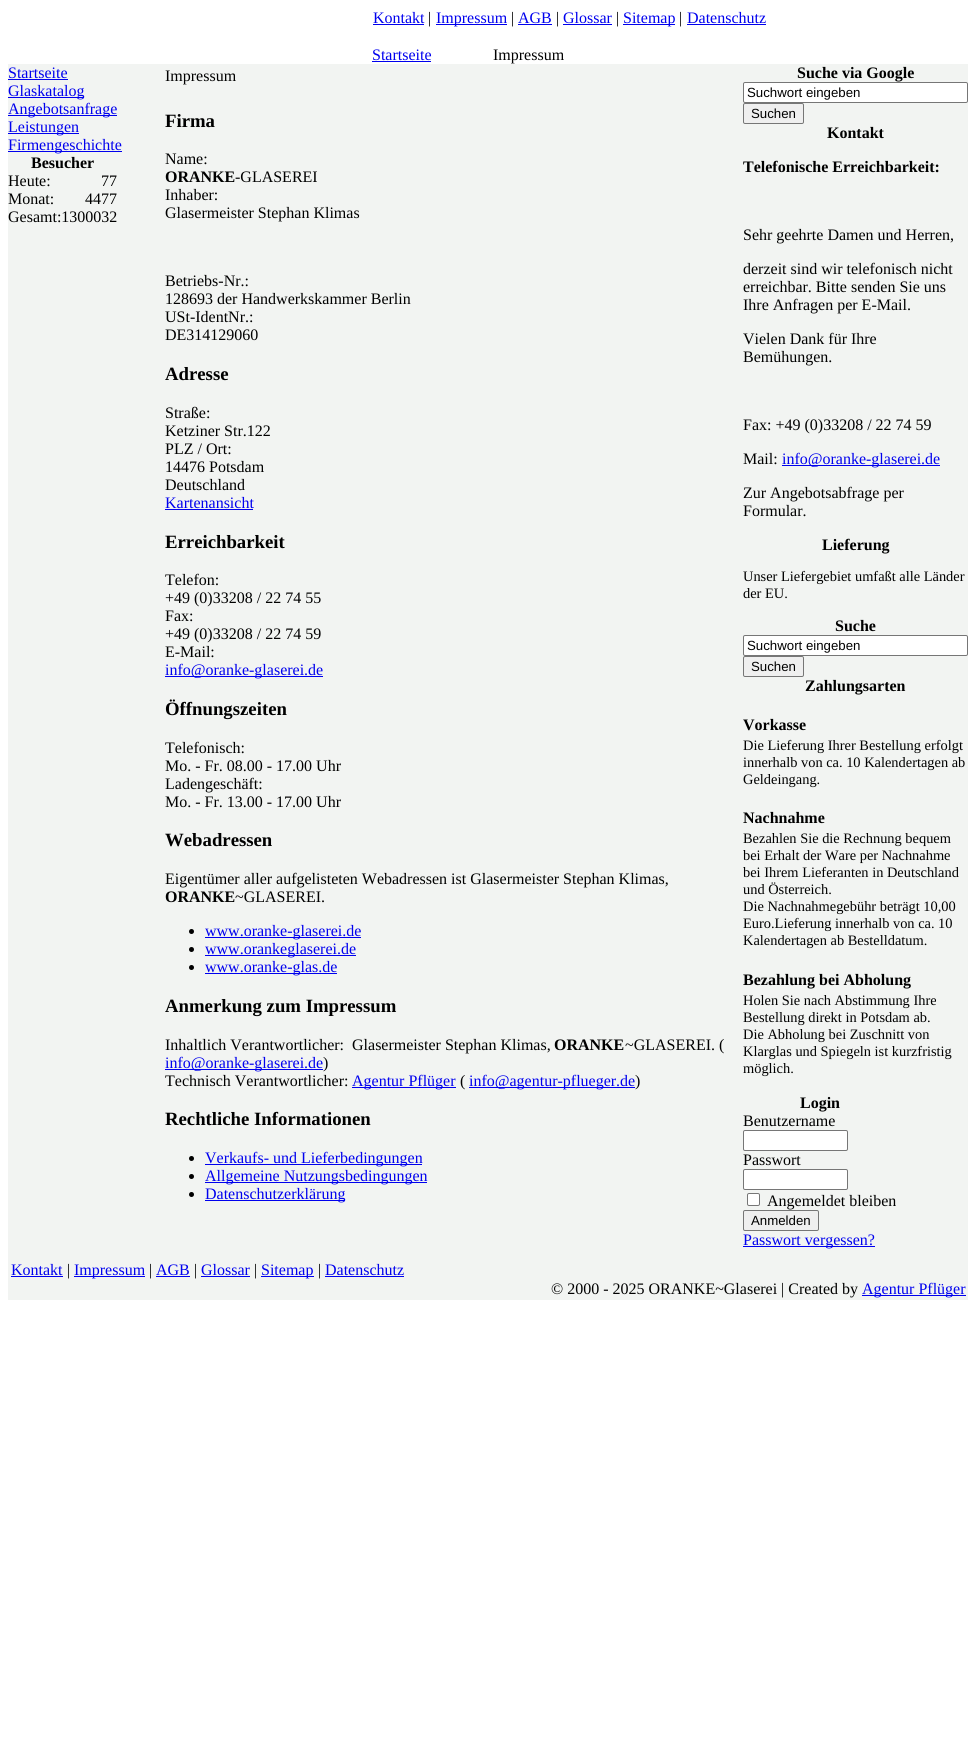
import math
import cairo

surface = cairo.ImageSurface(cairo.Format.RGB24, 976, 1760)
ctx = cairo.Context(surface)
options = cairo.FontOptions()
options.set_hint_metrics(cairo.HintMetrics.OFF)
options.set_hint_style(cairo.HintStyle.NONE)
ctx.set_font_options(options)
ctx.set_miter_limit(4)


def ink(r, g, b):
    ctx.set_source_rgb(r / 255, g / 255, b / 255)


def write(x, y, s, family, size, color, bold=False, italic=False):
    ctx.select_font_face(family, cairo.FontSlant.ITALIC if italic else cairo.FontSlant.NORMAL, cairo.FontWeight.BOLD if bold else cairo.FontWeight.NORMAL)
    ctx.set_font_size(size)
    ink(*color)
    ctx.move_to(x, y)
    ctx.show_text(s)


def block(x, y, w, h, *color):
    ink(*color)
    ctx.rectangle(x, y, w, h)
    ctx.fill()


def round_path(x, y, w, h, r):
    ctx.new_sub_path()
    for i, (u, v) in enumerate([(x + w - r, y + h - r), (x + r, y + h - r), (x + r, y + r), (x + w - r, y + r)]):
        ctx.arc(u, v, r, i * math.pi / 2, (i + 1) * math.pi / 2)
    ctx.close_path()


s1 = dict(family="Liberation Serif", size=16, color=(0, 0, 238))
s2 = dict(family="Liberation Serif", size=16, color=(0, 0, 0))
s3 = dict(family="Liberation Serif", size=16, color=(0, 0, 0), bold=True)
s4 = dict(family="Liberation Serif", size=18.75, color=(0, 0, 0), bold=True)
s5 = dict(family="Liberation Sans", size=13.25, color=(0, 0, 0))
s6 = dict(family="Liberation Serif", size=14.4, color=(0, 0, 0))

ink(255, 255, 255)
ctx.paint()
write(373, 23, "Kontakt", **s1)
block(373, 24, 51, 1, 0, 0, 238)
write(428, 23, "|", **s2)
block(436, 24, 71, 1, 0, 0, 238)
write(436, 23, "Impressum", **s1)
write(511, 23, "|", **s2)
write(518, 23, "AGB", **s1)
block(518, 24, 34, 1, 0, 0, 238)
write(556, 23, "|", **s2)
write(563, 23, "Glossar", **s1)
block(563, 24, 49, 1, 0, 0, 238)
write(616, 23, "|", **s2)
block(623, 24, 52, 1, 0, 0, 238)
write(623, 23, "Sitemap", **s1)
write(679, 23, "|", **s2)
write(687, 23, "Datenschutz", **s1)
block(687, 24, 79, 1, 0, 0, 238)
write(372, 60, "Startseite", **s1)
block(372, 61, 59, 1, 0, 0, 238)
write(493, 60, "Impressum", **s2)
block(8, 64, 960, 1236, 242, 244, 242)
write(8, 78, "Startseite", **s1)
block(8, 79, 60, 1, 0, 0, 238)
block(8, 97, 76, 1, 0, 0, 238)
write(8, 96, "Glaskatalog", **s1)
block(8, 115, 109, 1, 0, 0, 238)
write(8, 114, "Angebotsanfrage", **s1)
block(8, 133, 71, 1, 0, 0, 238)
write(8, 132, "Leistungen", **s1)
block(8, 151, 114, 1, 0, 0, 238)
write(8, 150, "Firmengeschichte", **s1)
write(31, 168, "Besucher", **s3)
write(8, 186, "Heute:", **s2)
write(101, 186, "77", **s2)
write(8, 204, "Monat:", **s2)
write(85, 204, "4477", **s2)
write(8, 222, "Gesamt:1300032", **s2)
write(165, 81, "Impressum", **s2)
write(165, 127, "Firma", **s4)
write(165, 164, "Name:", **s2)
write(165, 182, "ORANKE", **s3)
write(235, 182, "-GLASEREI", **s2)
write(165, 200, "Inhaber:", **s2)
write(165, 218, "Glasermeister Stephan Klimas", **s2)
write(165, 286, "Betriebs-Nr.:", **s2)
write(165, 304, "128693 der Handwerkskammer Berlin", **s2)
write(165, 322, "USt-IdentNr.:", **s2)
write(165, 340, "DE314129060", **s2)
write(165, 380, "Adresse", **s4)
write(165, 418, "Straße:", **s2)
write(165, 436, "Ketziner Str.122", **s2)
write(165, 454, "PLZ / Ort:", **s2)
write(165, 472, "14476 Potsdam", **s2)
write(165, 490, "Deutschland", **s2)
write(165, 508, "Kartenansicht", **s1)
block(165, 509, 88, 1, 0, 0, 238)
write(165, 548, "Erreichbarkeit", **s4)
write(165, 585, "Telefon:", **s2)
write(165, 603, "+49 (0)33208 / 22 74 55", **s2)
write(165, 621, "Fax:", **s2)
write(165, 639, "+49 (0)33208 / 22 74 59", **s2)
write(165, 657, "E-Mail:", **s2)
block(165, 676, 158, 1, 0, 0, 238)
write(165, 675, "info@oranke-glaserei.de", **s1)
write(165, 715, "Öffnungszeiten", **s4)
write(165, 753, "Telefonisch:", **s2)
write(165, 771, "Mo. - Fr. 08.00 - 17.00 Uhr", **s2)
write(165, 789, "Ladengeschäft:", **s2)
write(165, 807, "Mo. - Fr. 13.00 - 17.00 Uhr", **s2)
write(165, 846, "Webadressen", **s4)
write(165, 884, "Eigentümer aller aufgelisteten Webadressen ist Glasermeister Stephan Klimas,", **s2)
write(165, 902, "ORANKE", **s3)
write(235, 902, "~GLASEREI.", **s2)
ctx.new_path()
ctx.arc(191.5, 931.5, 2.5, 0, 2 * math.pi)
ctx.fill()
block(205, 937, 156, 1, 0, 0, 238)
write(205, 936, "www.oranke-glaserei.de", **s1)
ink(0, 0, 0)
ctx.new_path()
ctx.arc(191.5, 949.5, 2.5, 0, 2 * math.pi)
ctx.fill()
block(205, 955, 151, 1, 0, 0, 238)
write(205, 954, "www.orankeglaserei.de", **s1)
ink(0, 0, 0)
ctx.new_path()
ctx.arc(191.5, 967.5, 2.5, 0, 2 * math.pi)
ctx.fill()
block(205, 973, 132, 1, 0, 0, 238)
write(205, 972, "www.oranke-glas.de", **s1)
write(165, 1012, "Anmerkung zum Impressum", **s4)
write(165, 1050, "Inhaltlich Verantwortlicher:  Glasermeister Stephan Klimas,", **s2)
write(554, 1050, "ORANKE", **s3)
write(625, 1050, "~GLASEREI. (", **s2)
block(165, 1069, 158, 1, 0, 0, 238)
write(165, 1068, "info@oranke-glaserei.de", **s1)
write(323, 1068, ")", **s2)
write(165, 1086, "Technisch Verantwortlicher:", **s2)
block(352, 1087, 104, 1, 0, 0, 238)
write(352, 1086, "Agentur Pflüger", **s1)
write(460, 1086, "(", **s2)
block(469, 1087, 166, 1, 0, 0, 238)
write(469, 1086, "info@agentur-pflueger.de", **s1)
write(635, 1086, ")", **s2)
write(165, 1125, "Rechtliche Informationen", **s4)
ctx.new_path()
ctx.arc(191.5, 1158.5, 2.5, 0, 2 * math.pi)
ctx.fill()
block(205, 1164, 217, 1, 0, 0, 238)
write(205, 1163, "Verkaufs- und Lieferbedingungen", **s1)
ink(0, 0, 0)
ctx.new_path()
ctx.arc(191.5, 1176.5, 2.5, 0, 2 * math.pi)
ctx.fill()
block(205, 1182, 222, 1, 0, 0, 238)
write(205, 1181, "Allgemeine Nutzungsbedingungen", **s1)
ink(0, 0, 0)
ctx.new_path()
ctx.arc(191.5, 1194.5, 2.5, 0, 2 * math.pi)
ctx.fill()
block(205, 1200, 140, 1, 0, 0, 238)
write(205, 1199, "Datenschutzerklärung", **s1)
write(797, 78, "Suche via Google", **s3)
ink(255, 255, 255)
round_path(743.5, 82.5, 224, 20, 1.5)
ctx.fill_preserve()
ink(118, 118, 118)
ctx.set_line_width(1)
ctx.stroke()
write(747, 97, "Suchwort eingeben", **s5)
ink(239, 239, 239)
round_path(743.5, 103.5, 60, 20, 1.5)
ctx.fill_preserve()
ink(118, 118, 118)
ctx.stroke()
write(751, 118, "Suchen", **s5)
write(827, 138, "Kontakt", **s3)
write(743, 172, "Telefonische Erreichbarkeit:", **s3)
write(743, 240, "Sehr geehrte Damen und Herren,", **s2)
write(743, 274, "derzeit sind wir telefonisch nicht", **s2)
write(743, 292, "erreichbar. Bitte senden Sie uns", **s2)
write(743, 310, "Ihre Anfragen per E-Mail.", **s2)
write(743, 344, "Vielen Dank für Ihre", **s2)
write(743, 362, "Bemühungen.", **s2)
write(743, 430, "Fax: +49 (0)33208 / 22 74 59", **s2)
write(743, 464, "Mail:", **s2)
block(782, 465, 158, 1, 0, 0, 238)
write(782, 464, "info@oranke-glaserei.de", **s1)
write(743, 498, "Zur Angebotsabfrage per", **s2)
write(743, 516, "Formular.", **s2)
write(822, 550, "Lieferung", **s3)
write(743, 581, "Unser Liefergebiet umfaßt alle Länder", **s6)
write(743, 598, "der EU.", **s6)
write(835, 631, "Suche", **s3)
ink(255, 255, 255)
round_path(743.5, 635.5, 224, 20, 1.5)
ctx.fill_preserve()
ink(118, 118, 118)
ctx.stroke()
write(747, 650, "Suchwort eingeben", **s5)
ink(239, 239, 239)
round_path(743.5, 656.5, 60, 20, 1.5)
ctx.fill_preserve()
ink(118, 118, 118)
ctx.stroke()
write(751, 671, "Suchen", **s5)
write(805, 691, "Zahlungsarten", **s3)
write(743, 730, "Vorkasse", **s3)
write(743, 750, "Die Lieferung Ihrer Bestellung erfolgt", **s6)
write(743, 767, "innerhalb von ca. 10 Kalendertagen ab", **s6)
write(743, 784, "Geldeingang.", **s6)
write(743, 823, "Nachnahme", **s3)
write(743, 843, "Bezahlen Sie die Rechnung bequem", **s6)
write(743, 860, "bei Erhalt der Ware per Nachnahme", **s6)
write(743, 877, "bei Ihrem Lieferanten in Deutschland", **s6)
write(743, 894, "und Österreich.", **s6)
write(743, 911, "Die Nachnahmegebühr beträgt 10,00", **s6)
write(743, 928, "Euro.Lieferung innerhalb von ca. 10", **s6)
write(743, 945, "Kalendertagen ab Bestelldatum.", **s6)
write(743, 985, "Bezahlung bei Abholung", **s3)
write(743, 1005, "Holen Sie nach Abstimmung Ihre", **s6)
write(743, 1022, "Bestellung direkt in Potsdam ab.", **s6)
write(743, 1039, "Die Abholung bei Zuschnitt von", **s6)
write(743, 1056, "Klarglas und Spiegeln ist kurzfristig", **s6)
write(743, 1073, "möglich.", **s6)
write(800, 1108, "Login", **s3)
write(743, 1126, "Benutzername", **s2)
ink(255, 255, 255)
round_path(743.5, 1130.5, 104, 20, 1.5)
ctx.fill_preserve()
ink(118, 118, 118)
ctx.stroke()
write(743, 1165, "Passwort", **s2)
ink(255, 255, 255)
round_path(743.5, 1169.5, 104, 20, 1.5)
ctx.fill_preserve()
ink(118, 118, 118)
ctx.stroke()
ink(255, 255, 255)
round_path(747.5, 1193.5, 12, 12, 1.5)
ctx.fill_preserve()
ink(118, 118, 118)
ctx.stroke()
write(767, 1206, "Angemeldet bleiben", **s2)
ink(239, 239, 239)
round_path(743.5, 1210.5, 75, 20, 1.5)
ctx.fill_preserve()
ink(118, 118, 118)
ctx.stroke()
write(751, 1225, "Anmelden", **s5)
block(743, 1246, 132, 1, 0, 0, 238)
write(743, 1245, "Passwort vergessen?", **s1)
write(11, 1275, "Kontakt", **s1)
block(11, 1276, 52, 1, 0, 0, 238)
write(67, 1275, "|", **s2)
block(74, 1276, 71, 1, 0, 0, 238)
write(74, 1275, "Impressum", **s1)
write(149, 1275, "|", **s2)
write(156, 1275, "AGB", **s1)
block(156, 1276, 34, 1, 0, 0, 238)
write(194, 1275, "|", **s2)
write(201, 1275, "Glossar", **s1)
block(201, 1276, 49, 1, 0, 0, 238)
write(254, 1275, "|", **s2)
block(261, 1276, 53, 1, 0, 0, 238)
write(261, 1275, "Sitemap", **s1)
write(318, 1275, "|", **s2)
write(325, 1275, "Datenschutz", **s1)
block(325, 1276, 79, 1, 0, 0, 238)
write(551, 1294, "© 2000 - 2025 ORANKE~Glaserei | Created by", **s2)
block(862, 1295, 104, 1, 0, 0, 238)
write(862, 1294, "Agentur Pflüger", **s1)
surface.write_to_png("screenshot.png")
